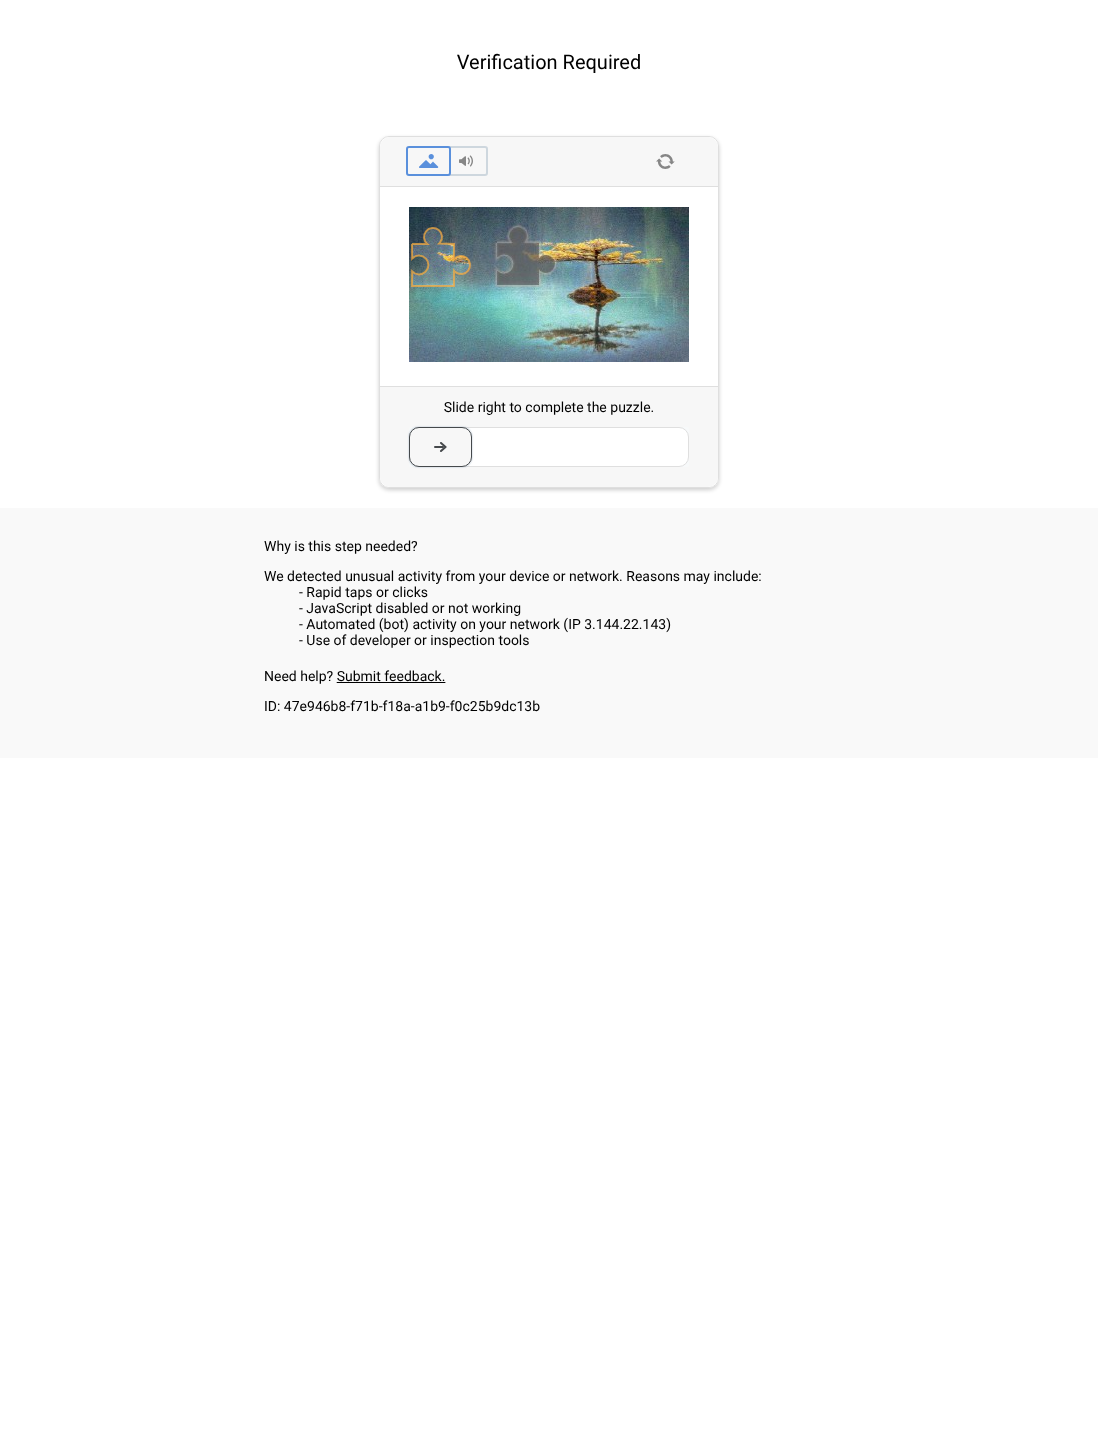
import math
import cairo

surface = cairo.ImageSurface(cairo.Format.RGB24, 1098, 1430)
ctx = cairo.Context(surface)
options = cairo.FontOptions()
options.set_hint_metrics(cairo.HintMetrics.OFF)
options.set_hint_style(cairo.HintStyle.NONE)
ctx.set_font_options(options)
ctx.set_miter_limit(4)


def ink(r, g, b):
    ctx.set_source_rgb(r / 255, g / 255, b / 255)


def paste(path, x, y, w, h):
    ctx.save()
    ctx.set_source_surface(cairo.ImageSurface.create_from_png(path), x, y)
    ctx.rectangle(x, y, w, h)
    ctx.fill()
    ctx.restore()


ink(255, 255, 255)
ctx.paint()
paste("pic1.png", 0, 53, 1098, 705)
surface.write_to_png("screenshot.png")
